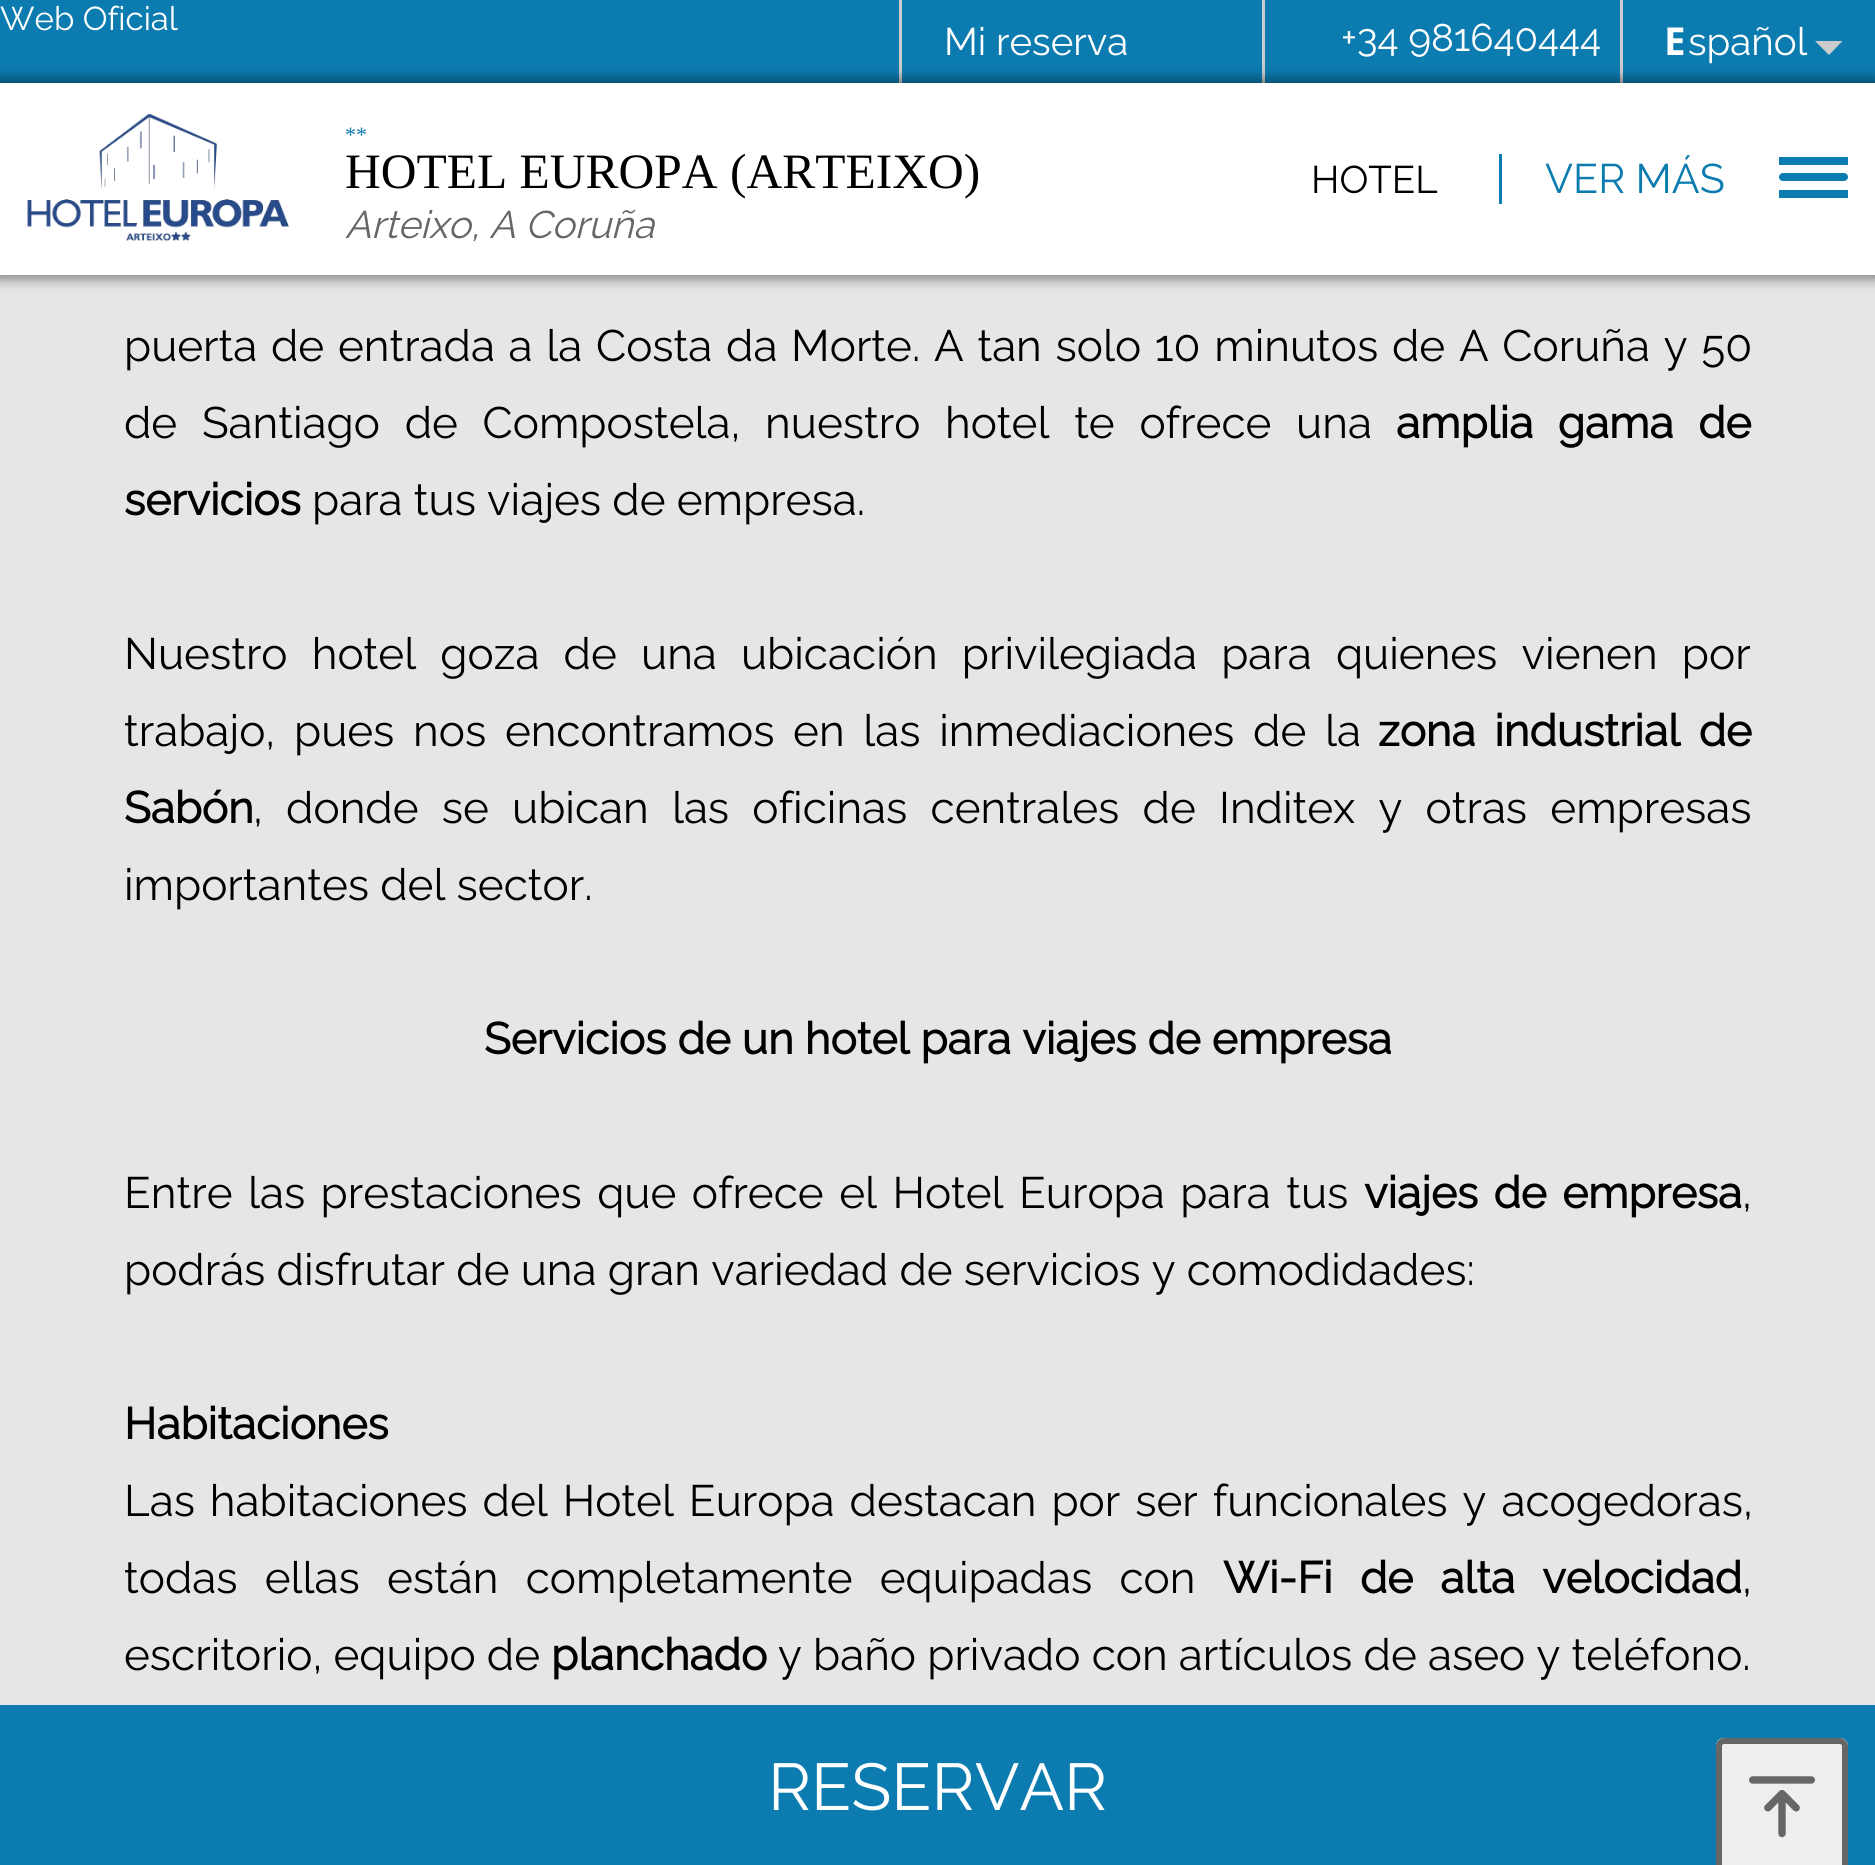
import math
import cairo

surface = cairo.ImageSurface(cairo.Format.RGB24, 1875, 1865)
ctx = cairo.Context(surface)
options = cairo.FontOptions()
options.set_hint_metrics(cairo.HintMetrics.OFF)
options.set_hint_style(cairo.HintStyle.NONE)
ctx.set_font_options(options)
ctx.set_miter_limit(4)


def ink(r, g, b):
    ctx.set_source_rgb(r / 255, g / 255, b / 255)


def write(x, y, s, family, size, color, bold=False, italic=False):
    ctx.select_font_face(family, cairo.FontSlant.ITALIC if italic else cairo.FontSlant.NORMAL, cairo.FontWeight.BOLD if bold else cairo.FontWeight.NORMAL)
    ctx.set_font_size(size)
    ink(*color)
    ctx.move_to(x, y)
    ctx.show_text(s)


def write_spaced(x, y, s, letter, word):
    ctx.move_to(x, y)
    for ch in s:
        ctx.show_text(ch)
        ctx.rel_move_to(letter + word * (ch == ' '), 0)


def block(x, y, w, h, *color):
    ink(*color)
    ctx.rectangle(x, y, w, h)
    ctx.fill()


def round_path(x, y, w, h, r):
    ctx.new_sub_path()
    for i, (u, v) in enumerate([(x + w - r, y + h - r), (x + r, y + h - r), (x + r, y + r), (x + w - r, y + r)]):
        ctx.arc(u, v, r, i * math.pi / 2, (i + 1) * math.pi / 2)
    ctx.close_path()


def blur_box(x, y, w, h, r, blur, alpha):
    ctx.push_group_with_content(cairo.Content.ALPHA)
    ctx.set_operator(cairo.Operator.SOURCE)
    for i in range(15, -16, -2):
        e = blur * i / 6
        if min(w, h) + 2 * e > 0:
            ctx.set_source_rgba(0, 0, 0, alpha * math.erfc((i - 1) / 8.5) / 2)
            round_path(x - e, y - e, w + 2 * e, h + 2 * e, max(0, min(r + e + blur * .6, min(w, h) / 2 + e)))
            ctx.fill()
    ctx.mask(ctx.pop_group())


def paste(path, x, y, w, h):
    ctx.save()
    ctx.set_source_surface(cairo.ImageSurface.create_from_png(path), x, y)
    ctx.rectangle(x, y, w, h)
    ctx.fill()
    ctx.restore()


s1 = dict(family="Raleway Thin", size=33, color=(255, 255, 255))
s2 = dict(family="Raleway Thin", size=38.5, color=(255, 255, 255))
s3 = dict(family="Noto Sans", size=38.5, color=(255, 255, 255), bold=True)
s4 = dict(family="Liberation Serif", size=22, color=(12, 124, 176))
s5 = dict(family="Liberation Serif", size=49.5, color=(0, 0, 0))
s6 = dict(family="Raleway Thin", size=38.5, color=(102, 102, 102), italic=True)
s7 = dict(family="Raleway Thin", size=38.5, color=(0, 0, 0))
s8 = dict(family="Raleway Thin", size=41.25, color=(12, 124, 176))
s9 = dict(family="Raleway Thin", size=66, color=(255, 255, 255))
s10 = dict(family="Raleway", size=44, color=(0, 0, 0), bold=True)
s11 = dict(family="Raleway Thin", size=44, color=(0, 0, 0))

ink(230, 230, 230)
ctx.paint()
block(0, 0, 1875, 83, 12, 124, 176)
write(0, 30, "Web Oficial", **s1)
block(899, 0, 3, 83, 204, 204, 204)
write(944, 55, "Mi reserva", **s2)
block(1262, 0, 3, 83, 204, 204, 204)
write(1341, 51, "+34 981640444", **s2)
block(1620, 0, 3, 83, 204, 204, 204)
write(1664, 55, "E", **s3)
write(1688, 55, "spañol", **s2)
ink(204, 204, 204)
ctx.new_path()
ctx.move_to(1815, 41)
ctx.line_to(1842.5, 41)
ctx.line_to(1829, 55)
ctx.close_path()
ctx.fill()
ink(0, 0, 0)
blur_box(-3, 80, 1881, 198, 0, 7, 0.5)
block(0, 83, 1875, 192, 255, 255, 255)
paste("pic1.png", 27, 113, 262, 128)
write(345, 142, "**", **s4)
write(345, 188, "HOTEL EUROPA (ARTEIXO)", **s5)
write(345, 238, "Arteixo, A Coruña", **s6)
write(1311, 193, "HOTEL", **s7)
block(1499, 154, 3, 50, 12, 124, 176)
write(1545, 193, "VER MÁS", **s8)
round_path(1779, 173, 69, 8, 4)
ctx.fill()
block(1779, 157, 69, 8, 12, 124, 176)
block(1779, 190, 69, 8, 12, 124, 176)
block(0, 1705, 1875, 160, 12, 124, 176)
write(768, 1810, "RESERVAR", **s9)
ctx.set_font_size(44)
ink(0, 0, 0)
write_spaced(124, 361, "puerta de entrada a la Costa da Morte. A tan solo 10 minutos de A Coruña y 50", 0, 2.5)
write_spaced(124, 438, "de Santiago de Compostela, nuestro hotel te ofrece una", 0, 13.5)
ctx.select_font_face("Raleway", cairo.FontSlant.NORMAL, cairo.FontWeight.BOLD)
write_spaced(1396, 438, "amplia gama de", 0, 13.5)
write(124, 515, "servicios", **s10)
write(312, 515, "para tus viajes de empresa.", **s11)
write_spaced(124, 669, "Nuestro hotel goza de una ubicación privilegiada para quienes vienen por", 0, 13)
write_spaced(124, 746, "trabajo, pues nos encontramos en las inmediaciones de la", 0, 7.5)
ctx.select_font_face("Raleway", cairo.FontSlant.NORMAL, cairo.FontWeight.BOLD)
write_spaced(1378, 746, "zona industrial de", 0, 7.5)
write(124, 823, "Sabón", **s10)
ctx.select_font_face("Raleway Thin")
write_spaced(253, 823, ", donde se ubican las oficinas centrales de Inditex y otras empresas", 0, 12)
write(124, 900, "importantes del sector.", **s11)
write(484, 1054, "Servicios de un hotel para viajes de empresa", **s10)
ctx.select_font_face("Raleway Thin")
write_spaced(124, 1208, "Entre las prestaciones que ofrece el Hotel Europa para tus", 0, 4.25)
ctx.select_font_face("Raleway", cairo.FontSlant.NORMAL, cairo.FontWeight.BOLD)
write_spaced(1364, 1208, "viajes de empresa", 0, 4.25)
write(1742, 1208, ",", **s11)
write(124, 1285, "podrás disfrutar de una gran variedad de servicios y comodidades:", **s11)
write(124, 1439, "Habitaciones", **s10)
ctx.select_font_face("Raleway Thin")
write_spaced(124, 1516, "Las habitaciones del Hotel Europa destacan por ser funcionales y acogedoras,", 0, 3.75)
write_spaced(124, 1593, "todas ellas están completamente equipadas con", 0, 16)
ctx.select_font_face("Raleway", cairo.FontSlant.NORMAL, cairo.FontWeight.BOLD)
write_spaced(1223, 1593, "Wi-Fi de alta velocidad", 0, 16)
write(1742, 1593, ",", **s11)
write(124, 1670, "escritorio, equipo de", **s11)
write(551, 1670, "planchado", **s10)
write(778, 1670, "y baño privado con artículos de aseo y teléfono.", **s11)
ink(238, 238, 238)
ctx.new_path()
ctx.move_to(1724, 1738)
ctx.line_to(1840, 1738)
ctx.curve_to(1844.5, 1738, 1848, 1741.5, 1848, 1746)
ctx.line_to(1848, 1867)
ctx.line_to(1716, 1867)
ctx.line_to(1716, 1746)
ctx.curve_to(1716, 1741.5, 1719.5, 1738, 1724, 1738)
ctx.close_path()
ctx.fill()
ink(102, 102, 102)
ctx.set_fill_rule(cairo.FillRule.EVEN_ODD)
ctx.new_path()
ctx.move_to(1724, 1738)
ctx.line_to(1840, 1738)
ctx.curve_to(1844, 1738, 1848, 1742, 1848, 1746)
ctx.line_to(1848, 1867)
ctx.line_to(1716, 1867)
ctx.line_to(1716, 1746)
ctx.curve_to(1716, 1742, 1720, 1738, 1724, 1738)
ctx.close_path()
ctx.move_to(1724, 1744)
ctx.line_to(1840, 1744)
ctx.curve_to(1841, 1744, 1842, 1745, 1842, 1746)
ctx.line_to(1842, 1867)
ctx.line_to(1722, 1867)
ctx.line_to(1722, 1746)
ctx.curve_to(1722, 1745, 1723, 1744, 1724, 1744)
ctx.close_path()
ctx.fill()
paste("pic2.png", 1749, 1776, 66, 62)
surface.write_to_png("screenshot.png")
